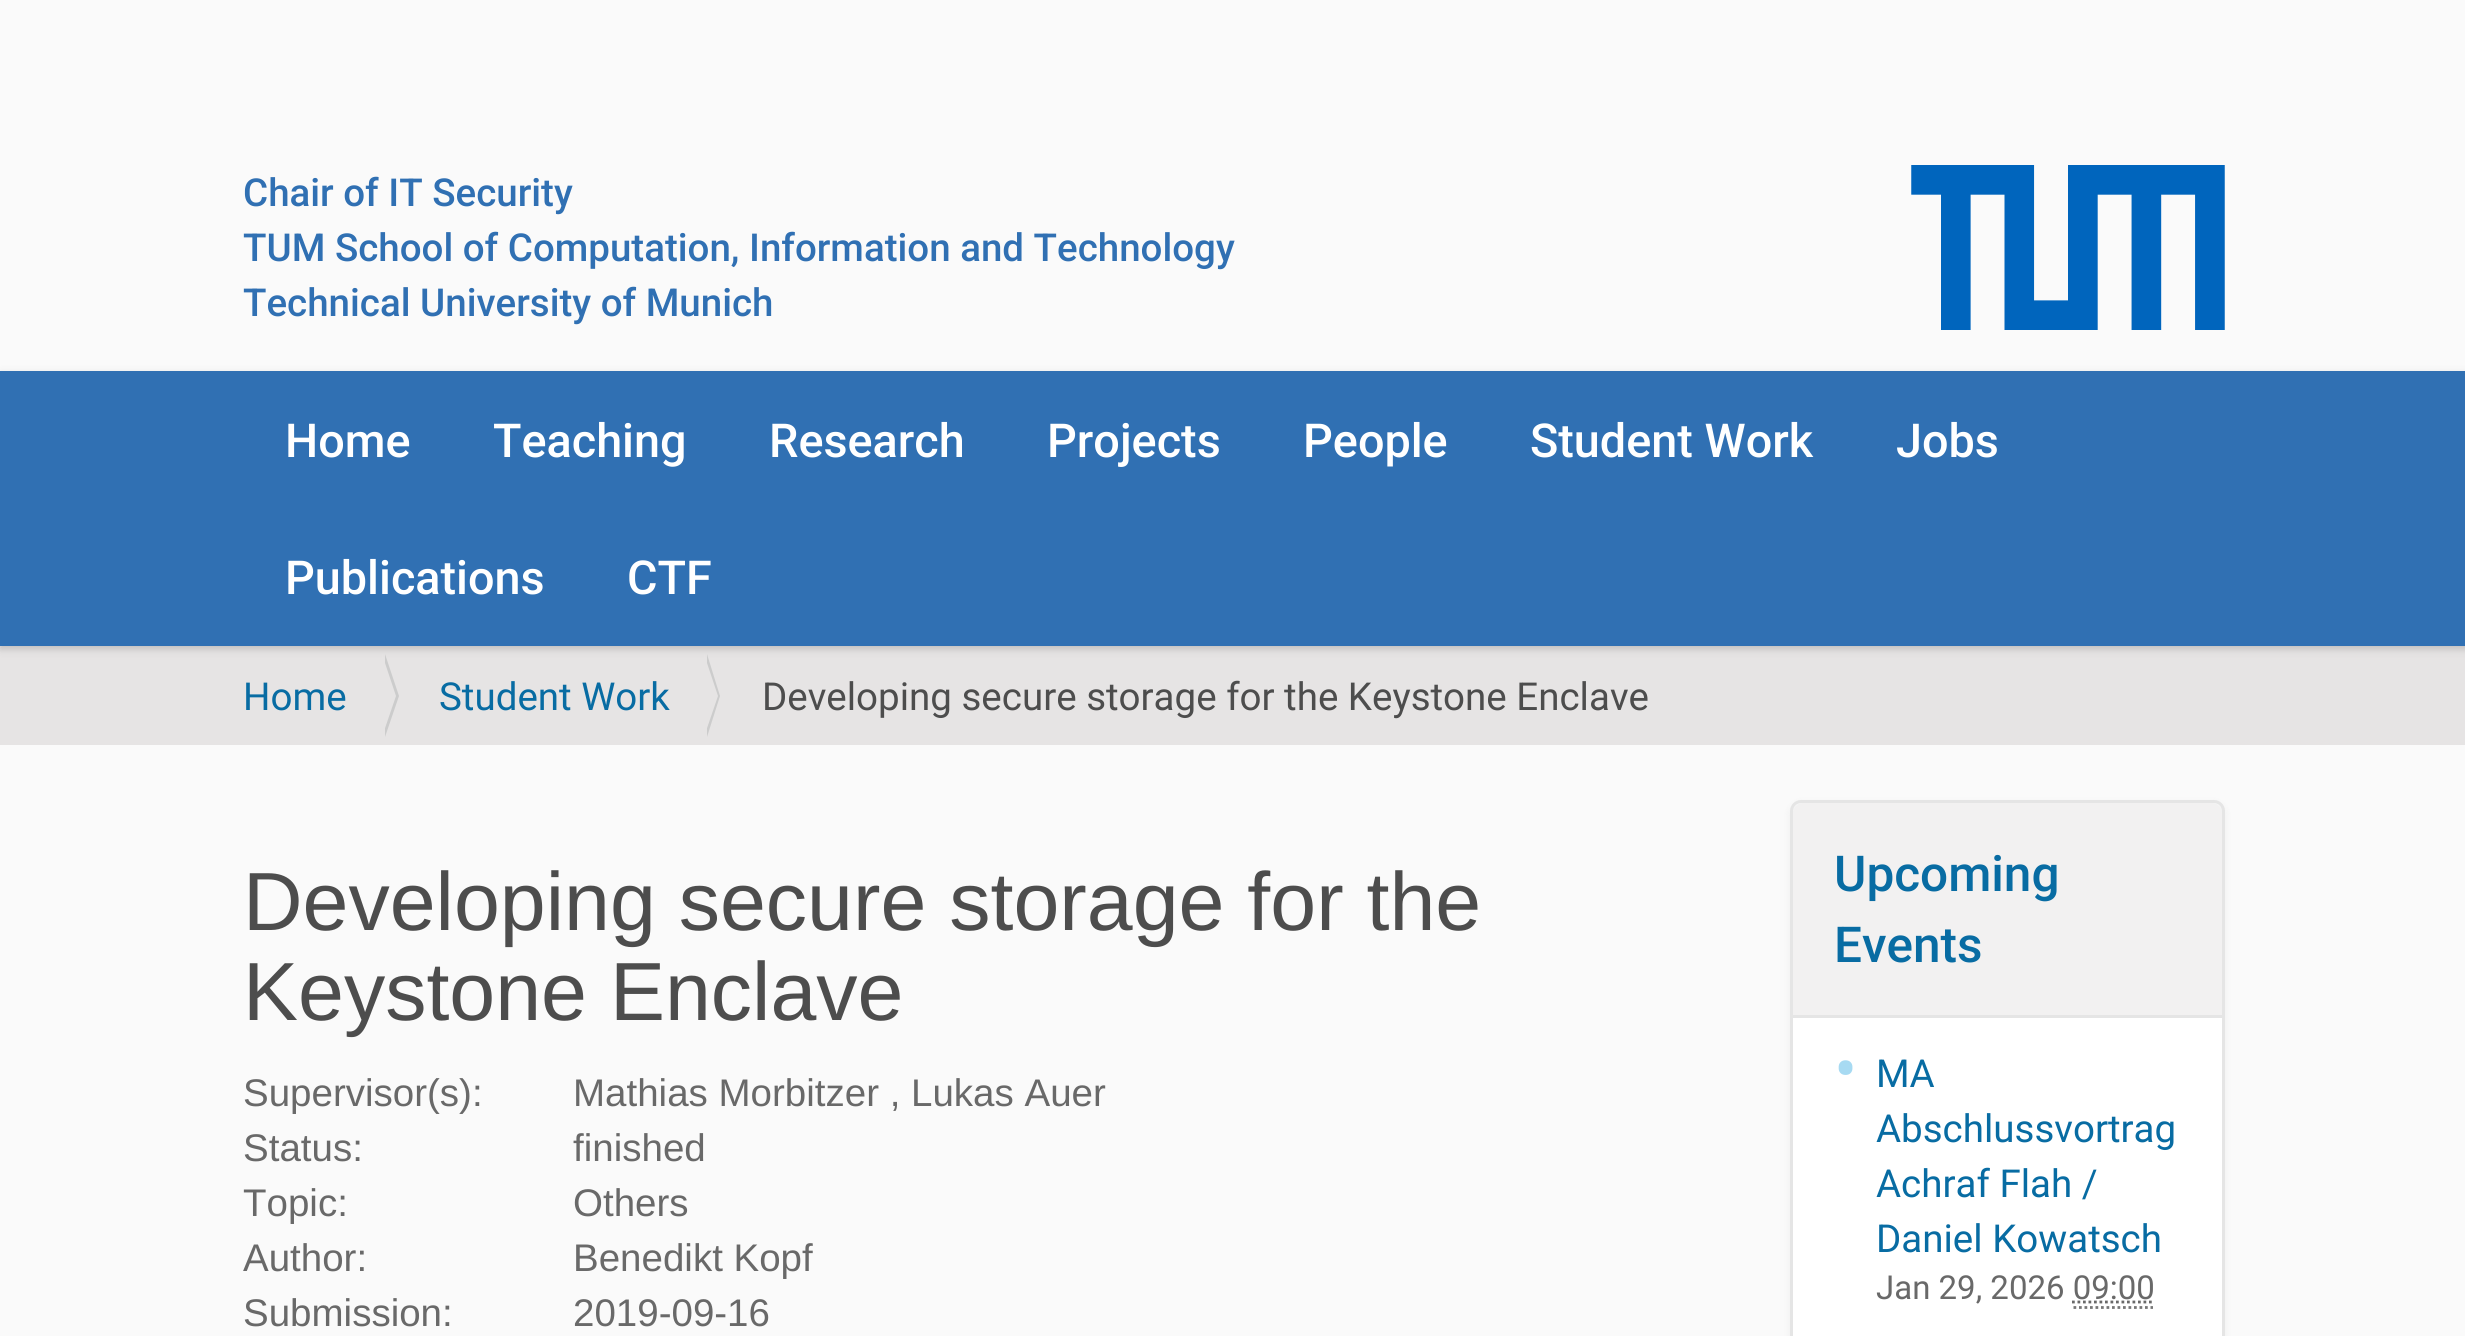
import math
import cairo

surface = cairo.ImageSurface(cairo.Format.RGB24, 2465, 1336)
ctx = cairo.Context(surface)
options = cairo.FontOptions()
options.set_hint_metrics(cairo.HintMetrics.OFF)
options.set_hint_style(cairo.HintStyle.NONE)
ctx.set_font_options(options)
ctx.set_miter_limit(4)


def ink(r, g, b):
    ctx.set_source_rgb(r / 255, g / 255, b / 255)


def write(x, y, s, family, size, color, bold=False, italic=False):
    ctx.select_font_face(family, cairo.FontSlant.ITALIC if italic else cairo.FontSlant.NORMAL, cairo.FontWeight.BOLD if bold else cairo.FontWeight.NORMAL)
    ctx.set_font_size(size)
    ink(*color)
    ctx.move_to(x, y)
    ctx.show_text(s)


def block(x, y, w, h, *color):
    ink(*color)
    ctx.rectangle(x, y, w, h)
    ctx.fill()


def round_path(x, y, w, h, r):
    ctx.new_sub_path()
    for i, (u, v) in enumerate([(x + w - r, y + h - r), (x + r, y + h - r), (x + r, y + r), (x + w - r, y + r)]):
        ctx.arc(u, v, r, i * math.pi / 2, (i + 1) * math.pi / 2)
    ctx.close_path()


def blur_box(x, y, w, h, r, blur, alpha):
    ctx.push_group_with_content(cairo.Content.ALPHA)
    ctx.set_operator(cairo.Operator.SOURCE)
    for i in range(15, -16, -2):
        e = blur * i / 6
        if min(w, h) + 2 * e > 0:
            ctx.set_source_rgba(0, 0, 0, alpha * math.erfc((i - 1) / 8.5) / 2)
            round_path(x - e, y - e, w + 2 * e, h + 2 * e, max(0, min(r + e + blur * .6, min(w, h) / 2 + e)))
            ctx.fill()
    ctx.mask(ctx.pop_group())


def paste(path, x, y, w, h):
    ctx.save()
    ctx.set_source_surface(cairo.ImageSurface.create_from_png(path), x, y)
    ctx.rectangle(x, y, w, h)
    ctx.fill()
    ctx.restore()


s1 = dict(family="Roboto Medium", size=38.5, color=(48, 112, 179))
s2 = dict(family="Roboto Medium", size=46.75, color=(255, 255, 255))
s3 = dict(family="Roboto", size=38.5, color=(8, 108, 163))
s4 = dict(family="Roboto", size=38.5, color=(77, 77, 77))
s5 = dict(family="Liberation Sans", size=82.5, color=(77, 77, 77))
s6 = dict(family="Liberation Sans", size=38.5, color=(105, 105, 105))
s7 = dict(family="Roboto Medium", size=49.5, color=(8, 108, 163))
s8 = dict(family="Roboto", size=69, color=(167, 218, 242))
s9 = dict(family="Roboto", size=33, color=(105, 105, 105))

ink(250, 250, 250)
ctx.paint()
write(243, 206, "Chair of IT Security", **s1)
write(243, 261, "TUM School of Computation, Information and Technology", **s1)
write(243, 316, "Technical University of Munich", **s1)
paste("pic1.png", 1911, 165, 314, 165)
block(0, 646, 2465, 99, 230, 228, 228)
ink(0, 0, 0)
blur_box(0, 374, 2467, 275, 0, 4, 0.17)
block(0, 371, 2465, 275, 48, 112, 179)
write(285, 457, "Home", **s2)
write(493, 457, "Teaching", **s2)
write(769, 457, "Research", **s2)
write(1047, 457, "Projects", **s2)
write(1303, 457, "People", **s2)
write(1530, 457, "Student Work", **s2)
write(1896, 457, "Jobs", **s2)
write(285, 594, "Publications", **s2)
write(627, 594, "CTF", **s2)
write(243, 710, "Home", **s3)
ink(204, 204, 204)
ctx.new_path()
ctx.move_to(385, 737)
ctx.line_to(385, 654)
ctx.line_to(399, 696)
ctx.close_path()
ctx.fill()
ink(230, 228, 228)
ctx.new_path()
ctx.move_to(382, 737)
ctx.line_to(382, 654)
ctx.line_to(396, 696)
ctx.close_path()
ctx.fill()
write(439, 710, "Student Work", **s3)
ink(204, 204, 204)
ctx.new_path()
ctx.move_to(707, 737)
ctx.line_to(707, 654)
ctx.line_to(720, 696)
ctx.close_path()
ctx.fill()
ink(230, 228, 228)
ctx.new_path()
ctx.move_to(704, 737)
ctx.line_to(704, 654)
ctx.line_to(718, 696)
ctx.close_path()
ctx.fill()
write(762, 710, "Developing secure storage for the Keystone Enclave", **s4)
write(243, 930, "Developing secure storage for the", **s5)
write(243, 1020, "Keystone Enclave", **s5)
write(243, 1106, "Supervisor(s):", **s6)
write(573, 1106, "Mathias Morbitzer , Lukas Auer", **s6)
write(243, 1161, "Status:", **s6)
write(573, 1161, "finished", **s6)
write(243, 1216, "Topic:", **s6)
write(573, 1216, "Others", **s6)
write(243, 1271, "Author:", **s6)
write(573, 1271, "Benedikt Kopf", **s6)
write(243, 1326, "Submission:", **s6)
write(573, 1326, "2019-09-16", **s6)
ink(0, 0, 0)
blur_box(1790, 803, 435, 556, 11, 4, 0.05)
round_path(1791.5, 801.5, 432, 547, 9.5)
ink(229, 229, 229)
ctx.set_line_width(3)
ctx.stroke()
ink(242, 241, 241)
ctx.new_path()
ctx.move_to(1804, 803)
ctx.line_to(2211, 803)
ctx.curve_to(2217, 803, 2222, 808, 2222, 814)
ctx.line_to(2222, 1015)
ctx.line_to(1793, 1015)
ctx.line_to(1793, 814)
ctx.curve_to(1793, 808, 1798, 803, 1804, 803)
ctx.close_path()
ctx.fill()
write(1834, 891, "Upcoming", **s7)
write(1834, 962, "Events", **s7)
block(1793, 1018, 429, 318, 255, 255, 255)
block(1793, 1015, 429, 3, 229, 229, 229)
write(1834, 1093, "•", **s8)
write(1876, 1087, "MA", **s3)
write(1876, 1142, "Abschlussvortrag", **s3)
write(1876, 1197, "Achraf Flah /", **s3)
write(1876, 1252, "Daniel Kowatsch", **s3)
write(1876, 1299, "Jan 29, 2026 09:00", **s9)
ctx.new_path()
ctx.move_to(2072, 1302)
ctx.line_to(2154.5, 1302)
ctx.set_line_width(2.8)
ctx.set_dash([2.75, 2.75])
ctx.stroke()
ctx.new_path()
ctx.move_to(2073.5, 1307.5)
ctx.line_to(2153, 1307.5)
ink(119, 119, 119)
ctx.stroke()
surface.write_to_png("screenshot.png")
